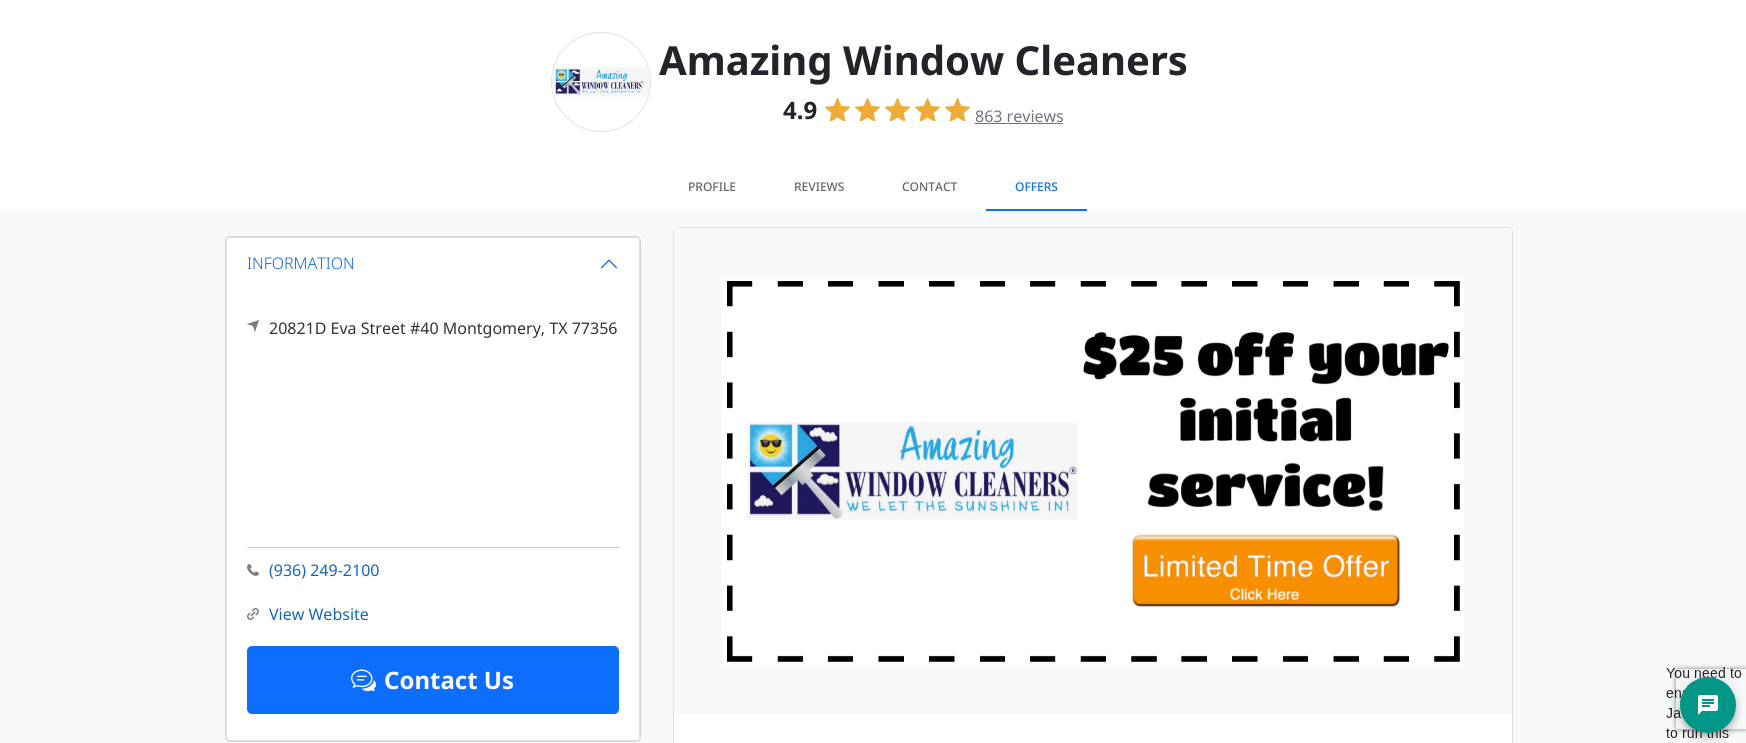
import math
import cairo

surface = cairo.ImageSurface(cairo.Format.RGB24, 1746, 743)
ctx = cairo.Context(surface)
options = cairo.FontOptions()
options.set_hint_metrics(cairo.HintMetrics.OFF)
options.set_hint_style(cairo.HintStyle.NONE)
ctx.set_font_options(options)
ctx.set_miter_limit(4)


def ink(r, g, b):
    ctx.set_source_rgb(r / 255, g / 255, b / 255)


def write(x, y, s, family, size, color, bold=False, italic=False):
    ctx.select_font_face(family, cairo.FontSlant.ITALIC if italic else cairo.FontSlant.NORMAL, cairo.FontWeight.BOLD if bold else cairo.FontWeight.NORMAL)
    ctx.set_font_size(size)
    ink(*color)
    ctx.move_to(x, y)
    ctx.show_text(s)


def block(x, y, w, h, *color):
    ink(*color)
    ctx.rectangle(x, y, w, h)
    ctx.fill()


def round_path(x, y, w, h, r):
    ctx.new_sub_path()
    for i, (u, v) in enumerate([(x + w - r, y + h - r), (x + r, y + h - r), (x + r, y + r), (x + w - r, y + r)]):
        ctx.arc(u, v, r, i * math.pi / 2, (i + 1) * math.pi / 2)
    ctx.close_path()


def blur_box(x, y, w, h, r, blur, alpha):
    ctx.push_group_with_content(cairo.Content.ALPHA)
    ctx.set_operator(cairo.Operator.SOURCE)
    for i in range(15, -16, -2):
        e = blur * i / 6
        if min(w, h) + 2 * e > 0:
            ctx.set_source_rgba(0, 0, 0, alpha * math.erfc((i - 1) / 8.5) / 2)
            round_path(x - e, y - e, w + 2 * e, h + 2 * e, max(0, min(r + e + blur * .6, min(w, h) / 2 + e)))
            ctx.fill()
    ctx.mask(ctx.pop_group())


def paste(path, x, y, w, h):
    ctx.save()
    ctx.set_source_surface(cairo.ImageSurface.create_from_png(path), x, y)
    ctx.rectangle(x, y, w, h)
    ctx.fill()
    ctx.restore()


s1 = dict(family="Noto Sans", size=40, color=(33, 37, 41), bold=True)
s2 = dict(family="Noto Sans", size=24, color=(33, 37, 41), bold=True)
s3 = dict(family="Noto Sans", size=16, color=(108, 117, 125))
s4 = dict(family="Noto Sans Medium", size=12, color=(102, 102, 102))
s5 = dict(family="Noto Sans Medium", size=12, color=(13, 110, 253))
s6 = dict(family="Noto Sans Light", size=16, color=(12, 99, 228))
s7 = dict(family="Noto Sans", size=16, color=(51, 51, 51))
s8 = dict(family="Noto Sans", size=16, color=(21, 103, 185))
s9 = dict(family="Noto Sans", size=24, color=(255, 255, 255), bold=True)

ink(255, 255, 255)
ctx.paint()
ctx.arc(601, 82, 49.5, 0, 2 * math.pi)
ink(222, 226, 230)
ctx.set_line_width(1)
ctx.stroke()
paste("pic1.png", 552, 67, 98, 30)
write(659, 75, "Amazing Window Cleaners", **s1)
write(783, 119, "4.9", **s2)
paste("pic2.png", 825, 98, 25, 23)
paste("pic2.png", 855, 98, 25, 23)
paste("pic2.png", 885, 98, 25, 23)
paste("pic2.png", 915, 98, 25, 23)
paste("pic2.png", 945, 98, 25, 23)
write(975, 122, "863 reviews", **s3)
block(975, 123, 88, 1, 108, 117, 125)
write(688, 191, "PROFILE", **s4)
write(794, 191, "REVIEWS", **s4)
write(902, 191, "CONTACT", **s4)
block(986, 209, 101, 2, 13, 110, 253)
write(1015, 191, "OFFERS", **s5)
block(0, 211, 1746, 532, 248, 249, 250)
round_path(225.5, 236.5, 415, 505, 4.5)
ink(211, 211, 211)
ctx.stroke()
ink(255, 255, 255)
round_path(226, 237, 414, 504, 4)
ctx.fill()
round_path(226.5, 237.5, 413, 503, 3.5)
ctx.set_source_rgba(0, 0, 0, 0.12)
ctx.stroke()
ink(255, 255, 255)
ctx.new_path()
ctx.move_to(230, 238)
ctx.line_to(636, 238)
ctx.curve_to(637.5, 238, 639, 239.5, 639, 241)
ctx.line_to(639, 290)
ctx.line_to(227, 290)
ctx.line_to(227, 241)
ctx.curve_to(227, 239.5, 228.5, 238, 230, 238)
ctx.close_path()
ctx.fill()
write(247, 269, "INFORMATION", **s6)
paste("pic3.png", 600, 259, 18, 10)
paste("pic4.png", 247, 320, 12, 12)
write(269, 334, "20821D Eva Street #40 Montgomery, TX 77356", **s7)
block(247, 547, 372, 1, 204, 204, 204)
paste("pic5.png", 247, 564, 12, 12)
write(269, 576, "(936) 249-2100", **s8)
paste("pic6.png", 247, 608, 12, 12)
write(269, 620, "View Website", **s8)
ink(13, 110, 253)
round_path(247, 646, 372, 68, 5)
ctx.fill()
paste("pic7.png", 351, 669, 25, 23)
write(384, 689, "Contact Us", **s9)
round_path(673.5, 227.5, 839, 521, 4.5)
ctx.fill_preserve()
ink(222, 226, 230)
ctx.stroke()
block(674, 228, 838, 486, 248, 249, 250)
paste("pic8.png", 722, 276, 742, 390)
ctx.save()
ctx.set_fill_rule(cairo.FillRule.EVEN_ODD)
ctx.new_path()
ctx.move_to(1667, 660)
ctx.line_to(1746, 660)
ctx.line_to(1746, 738)
ctx.line_to(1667, 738)
ctx.close_path()
ctx.move_to(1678, 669)
ctx.line_to(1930, 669)
ctx.curve_to(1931, 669, 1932, 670, 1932, 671)
ctx.line_to(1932, 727)
ctx.curve_to(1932, 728, 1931, 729, 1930, 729)
ctx.line_to(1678, 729)
ctx.curve_to(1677, 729, 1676, 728, 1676, 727)
ctx.line_to(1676, 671)
ctx.curve_to(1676, 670, 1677, 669, 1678, 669)
ctx.close_path()
ctx.clip()
ink(128, 128, 128)
blur_box(1676, 669, 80, 60, 2, 2.5, 1)
ctx.restore()
paste("pic9.png", 1666, 667, 77, 76)
surface.write_to_png("screenshot.png")
